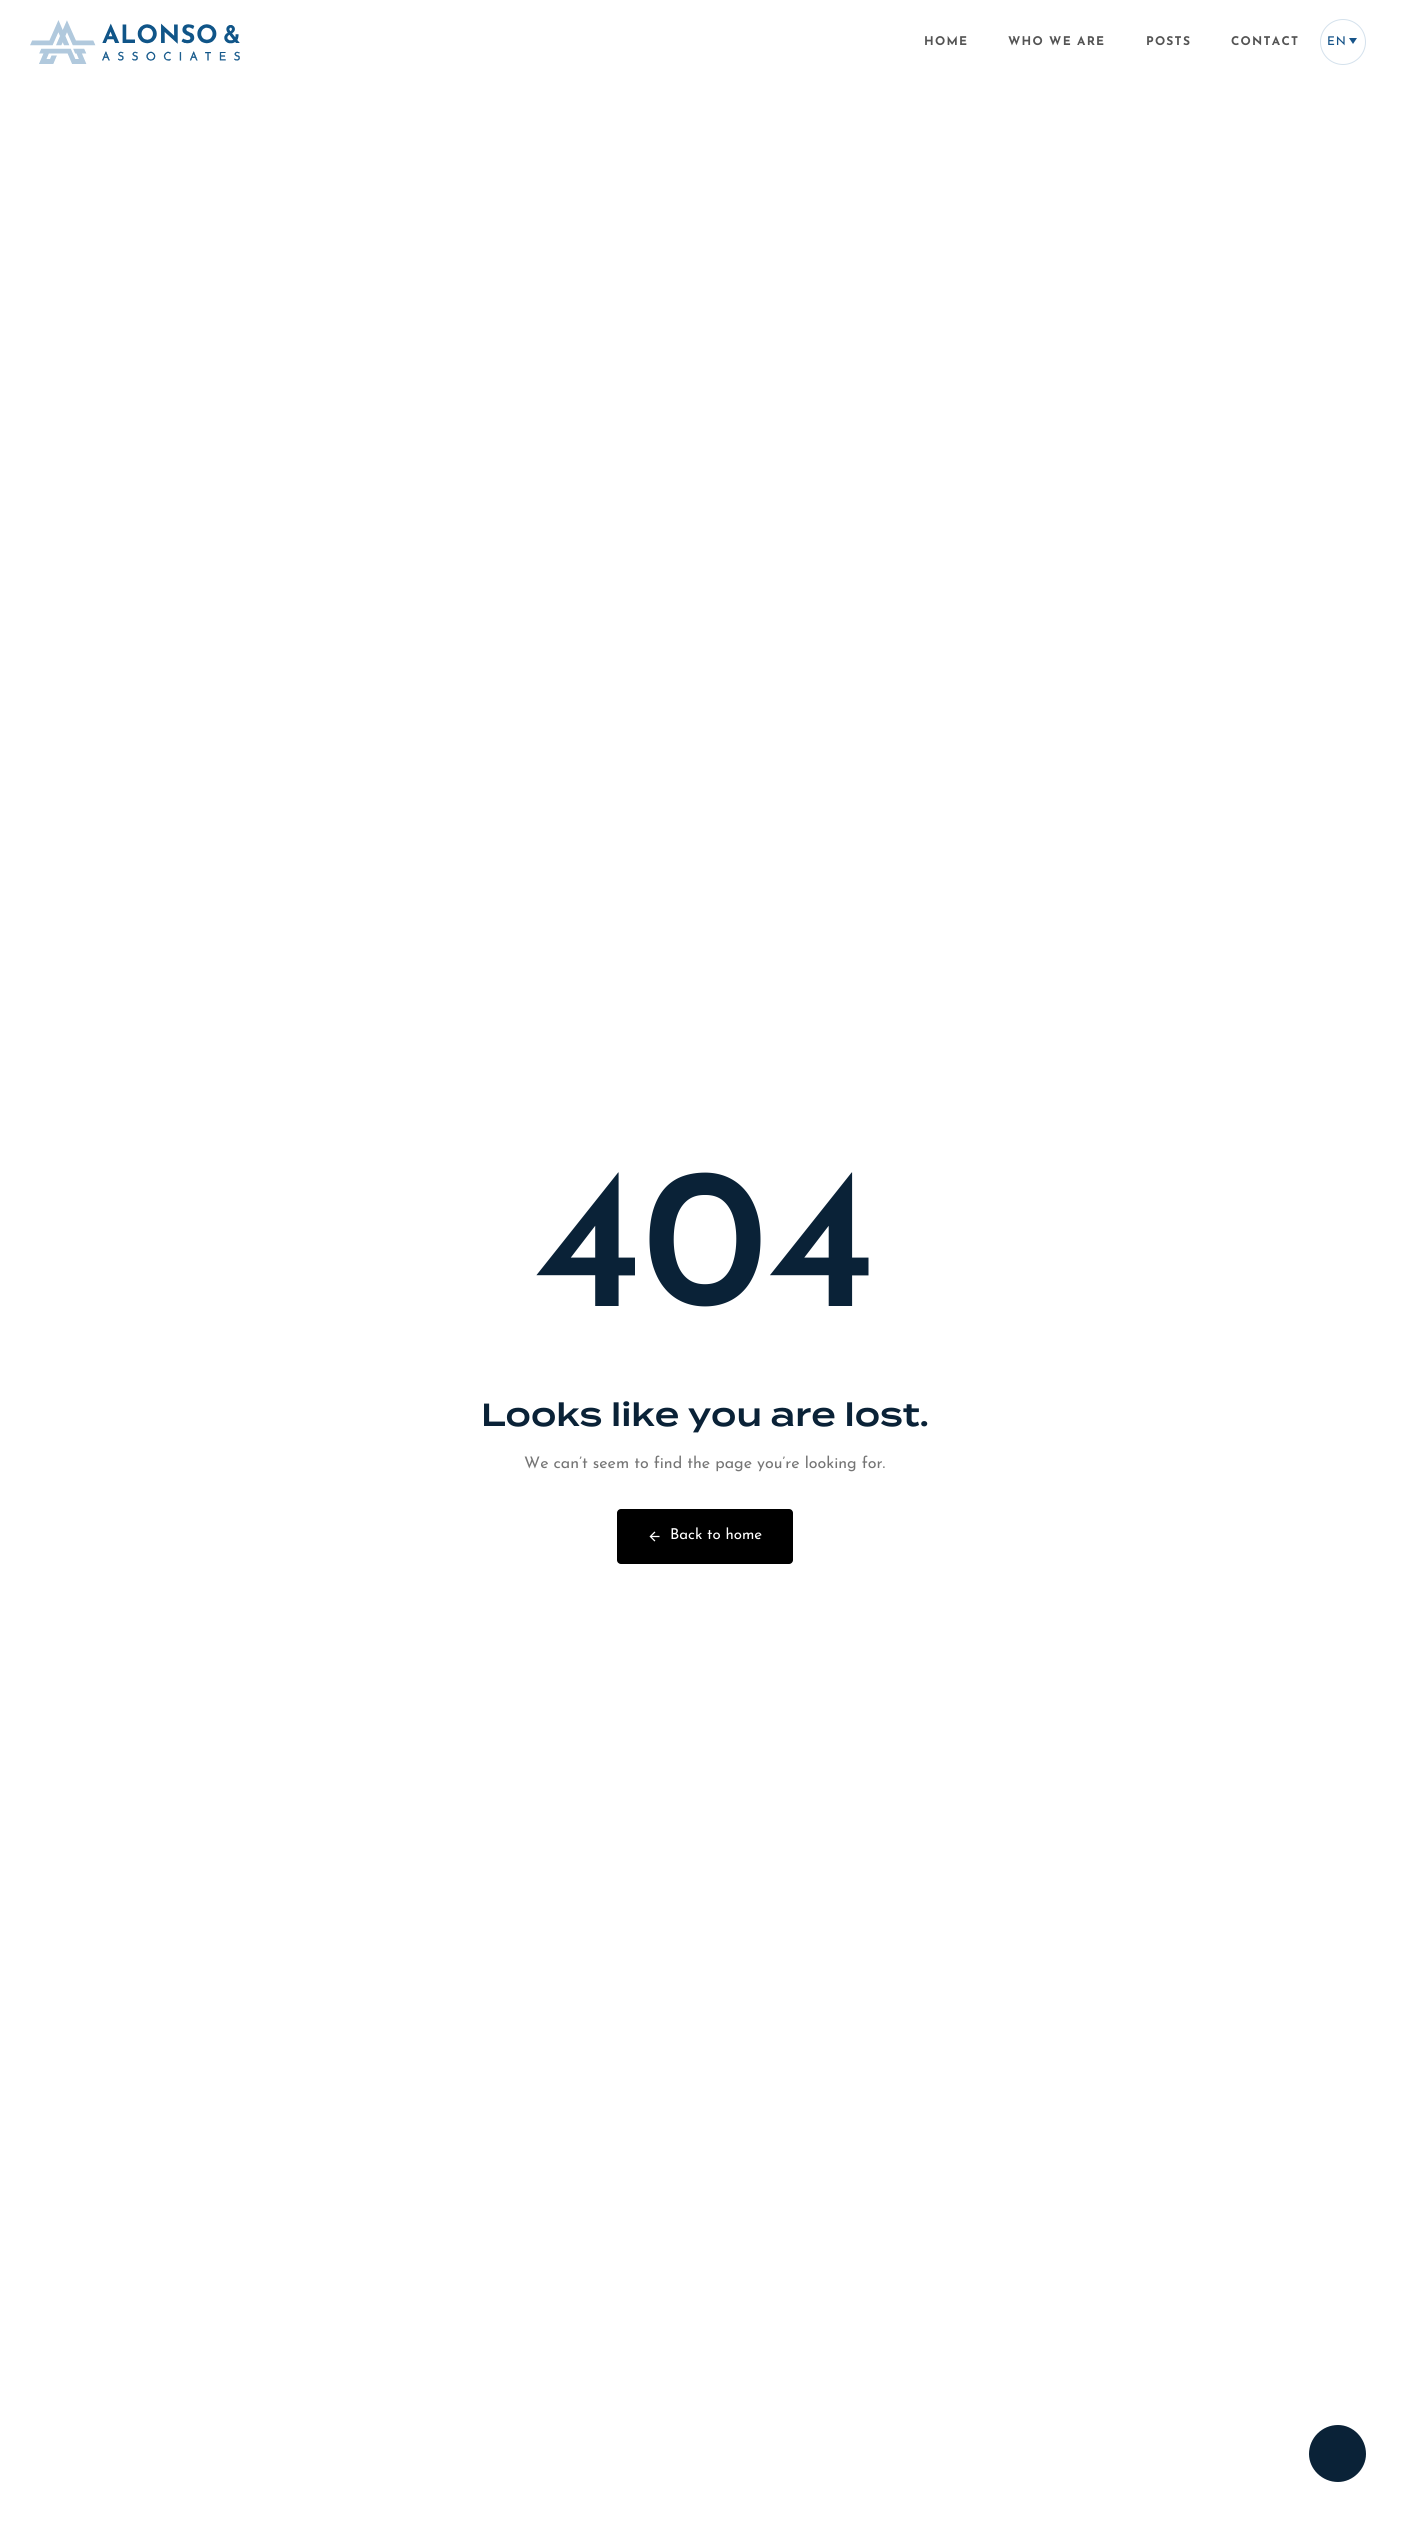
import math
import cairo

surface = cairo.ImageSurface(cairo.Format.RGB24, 1410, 2542)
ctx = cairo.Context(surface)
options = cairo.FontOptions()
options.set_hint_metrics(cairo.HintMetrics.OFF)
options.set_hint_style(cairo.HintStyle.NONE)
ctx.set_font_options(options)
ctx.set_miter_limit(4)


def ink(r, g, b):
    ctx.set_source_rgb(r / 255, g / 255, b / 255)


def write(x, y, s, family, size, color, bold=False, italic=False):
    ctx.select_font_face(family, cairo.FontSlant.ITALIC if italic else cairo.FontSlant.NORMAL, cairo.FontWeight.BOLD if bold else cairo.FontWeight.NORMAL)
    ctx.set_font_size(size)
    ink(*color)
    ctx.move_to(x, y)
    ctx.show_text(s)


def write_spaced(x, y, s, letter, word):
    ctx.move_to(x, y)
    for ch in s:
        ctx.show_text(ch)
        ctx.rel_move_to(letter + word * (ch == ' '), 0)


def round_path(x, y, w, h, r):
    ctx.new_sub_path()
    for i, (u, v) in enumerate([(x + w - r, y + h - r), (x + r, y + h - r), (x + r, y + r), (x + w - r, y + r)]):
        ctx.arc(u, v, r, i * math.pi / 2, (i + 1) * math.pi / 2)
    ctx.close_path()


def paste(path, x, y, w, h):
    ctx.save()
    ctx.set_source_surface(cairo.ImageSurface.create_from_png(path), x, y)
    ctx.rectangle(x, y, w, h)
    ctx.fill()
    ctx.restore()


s1 = dict(family="Josefin Sans SemiBold", size=200, color=(10, 34, 55))
s2 = dict(family="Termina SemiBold", size=32, color=(10, 34, 55))
s3 = dict(family="Josefin Sans", size=16, color=(117, 117, 117))
s4 = dict(family="Josefin Sans", size=15, color=(255, 255, 255))

ink(255, 255, 255)
ctx.paint()
paste("pic1.png", 30, 20, 210, 44)
ctx.select_font_face("Josefin Sans", cairo.FontSlant.NORMAL, cairo.FontWeight.BOLD)
ctx.set_font_size(12)
ink(84, 84, 84)
write_spaced(924, 45, "HOME", 1.25, 0)
write_spaced(1008, 45, "WHO WE ARE", 1.25, 0)
write_spaced(1146, 45, "POSTS", 1.25, 0)
write_spaced(1231, 45, "CONTACT", 1.25, 0)
ctx.new_path()
ctx.arc(1343, 42, 22.5, 0, 2 * math.pi)
ink(212, 225, 236)
ctx.set_line_width(1)
ctx.stroke()
ctx.select_font_face("Josefin Sans Medium")
ink(23, 84, 137)
write_spaced(1327, 45, "EN", 1, 0)
ctx.new_path()
ctx.move_to(1349, 38)
ctx.line_to(1357, 38)
ctx.line_to(1353, 44)
ctx.close_path()
ctx.fill()
ink(10, 34, 55)
ctx.new_path()
ctx.move_to(1309, 2454)
ctx.curve_to(1309, 2438, 1322, 2425, 1338, 2425)
ctx.curve_to(1353, 2425, 1366, 2438, 1366, 2454)
ctx.curve_to(1366, 2469, 1353, 2482, 1338, 2482)
ctx.curve_to(1322, 2482, 1309, 2469, 1309, 2454)
ctx.close_path()
ctx.fill()
write(534, 1306, "404", **s1)
write(481, 1426, "Looks like you are lost.", **s2)
write(524, 1468, "We can’t seem to find the page you’re looking for.", **s3)
ink(0, 0, 0)
round_path(617, 1509, 176, 55, 4)
ctx.fill()
paste("pic2.png", 649, 1531, 11, 11)
write(670, 1539, "Back to home", **s4)
surface.write_to_png("screenshot.png")
